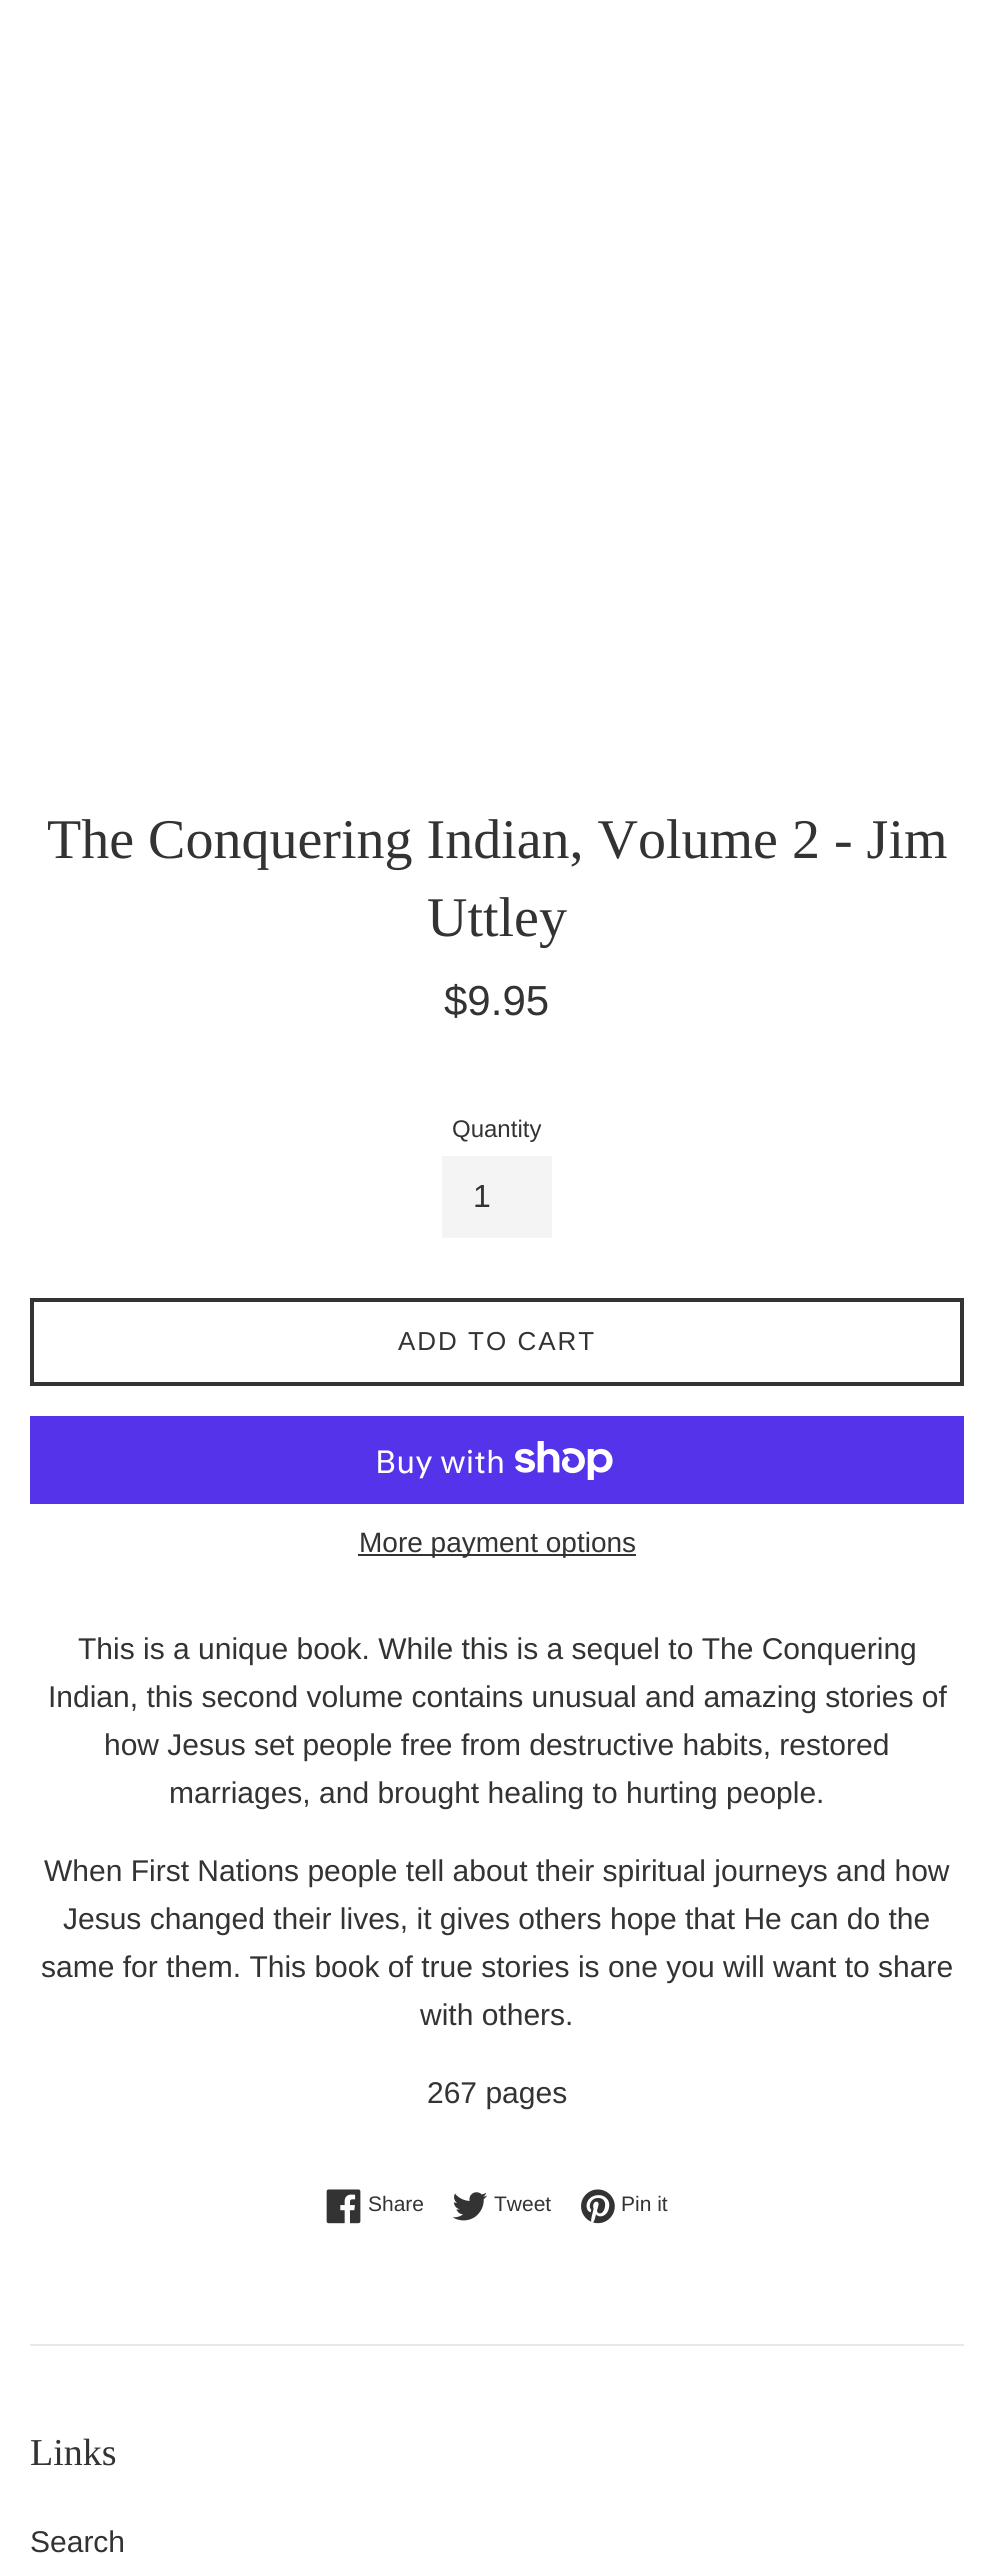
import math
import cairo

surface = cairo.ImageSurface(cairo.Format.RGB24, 993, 2554)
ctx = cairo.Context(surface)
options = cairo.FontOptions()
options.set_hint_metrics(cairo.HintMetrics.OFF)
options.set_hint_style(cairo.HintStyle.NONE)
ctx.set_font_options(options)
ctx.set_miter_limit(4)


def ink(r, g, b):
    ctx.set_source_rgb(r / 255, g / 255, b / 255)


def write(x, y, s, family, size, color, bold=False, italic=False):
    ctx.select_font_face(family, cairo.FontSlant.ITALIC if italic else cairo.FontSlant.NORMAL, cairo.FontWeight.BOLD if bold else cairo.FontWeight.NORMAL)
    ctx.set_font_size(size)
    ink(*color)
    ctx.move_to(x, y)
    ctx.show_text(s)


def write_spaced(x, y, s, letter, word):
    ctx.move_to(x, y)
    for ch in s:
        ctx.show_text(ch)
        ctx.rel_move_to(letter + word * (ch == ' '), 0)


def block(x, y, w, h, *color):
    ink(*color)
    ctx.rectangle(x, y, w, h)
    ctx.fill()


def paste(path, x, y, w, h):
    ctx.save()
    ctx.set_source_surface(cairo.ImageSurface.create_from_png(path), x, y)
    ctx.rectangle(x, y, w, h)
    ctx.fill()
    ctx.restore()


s1 = dict(family="Liberation Serif", size=56, color=(51, 51, 51))
s2 = dict(family="Liberation Sans", size=42, color=(51, 51, 51))
s3 = dict(family="Liberation Sans", size=24, color=(51, 51, 51))
s4 = dict(family="Liberation Sans", size=32, color=(51, 51, 51))
s5 = dict(family="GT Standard", size=32, color=(255, 255, 255))
s6 = dict(family="Liberation Sans", size=28, color=(51, 51, 51))
s7 = dict(family="Liberation Sans", size=30, color=(51, 51, 51))
s8 = dict(family="Liberation Sans", size=21, color=(51, 51, 51))
s9 = dict(family="Liberation Serif", size=38, color=(51, 51, 51))

ink(255, 255, 255)
ctx.paint()
write(47, 858, "The Conquering Indian, Volume 2 - Jim", **s1)
write(427, 936, "Uttley", **s1)
write(444, 1015, "$9.95", **s2)
write(452, 1137, "Quantity", **s3)
block(442, 1156, 110, 82, 244, 244, 244)
write(473, 1207, "1", **s4)
ctx.rectangle(32, 1300, 930, 84)
ctx.set_line_width(4)
ctx.stroke()
ctx.set_font_size(26)
write_spaced(398, 1350, "ADD TO CART", 2, 0)
block(30, 1416, 934, 88, 84, 51, 235)
write(375, 1473, "Buy with", **s5)
paste("pic1.png", 515, 1441, 98, 39)
block(358, 1554, 278, 2, 51, 51, 51)
write(359, 1552, "More payment options", **s6)
write(78, 1659, "This is a unique book. While this is a sequel to The Conquering", **s7)
write(48, 1707, "Indian, this second volume contains unusual and amazing stories of", **s7)
write(104, 1755, "how Jesus set people free from destructive habits, restored", **s7)
write(169, 1803, "marriages, and brought healing to hurting people.", **s7)
write(44, 1881, "When First Nations people tell about their spiritual journeys and how", **s7)
write(63, 1929, "Jesus changed their lives, it gives others hope that He can do the", **s7)
write(41, 1977, "same for them. This book of true stories is one you will want to share", **s7)
write(420, 2025, "with others.", **s7)
write(427, 2103, "267 pages", **s7)
paste("pic2.png", 326, 2189, 35, 35)
write(368, 2211, "Share", **s8)
paste("pic3.png", 452, 2192, 35, 29)
write(494, 2211, "Tweet", **s8)
paste("pic4.png", 581, 2189, 34, 35)
write(621, 2211, "Pin it", **s8)
block(30, 2344, 934, 2, 232, 232, 232)
write(30, 2465, "Links", **s9)
write(30, 2552, "Search", **s7)
surface.write_to_png("screenshot.png")
